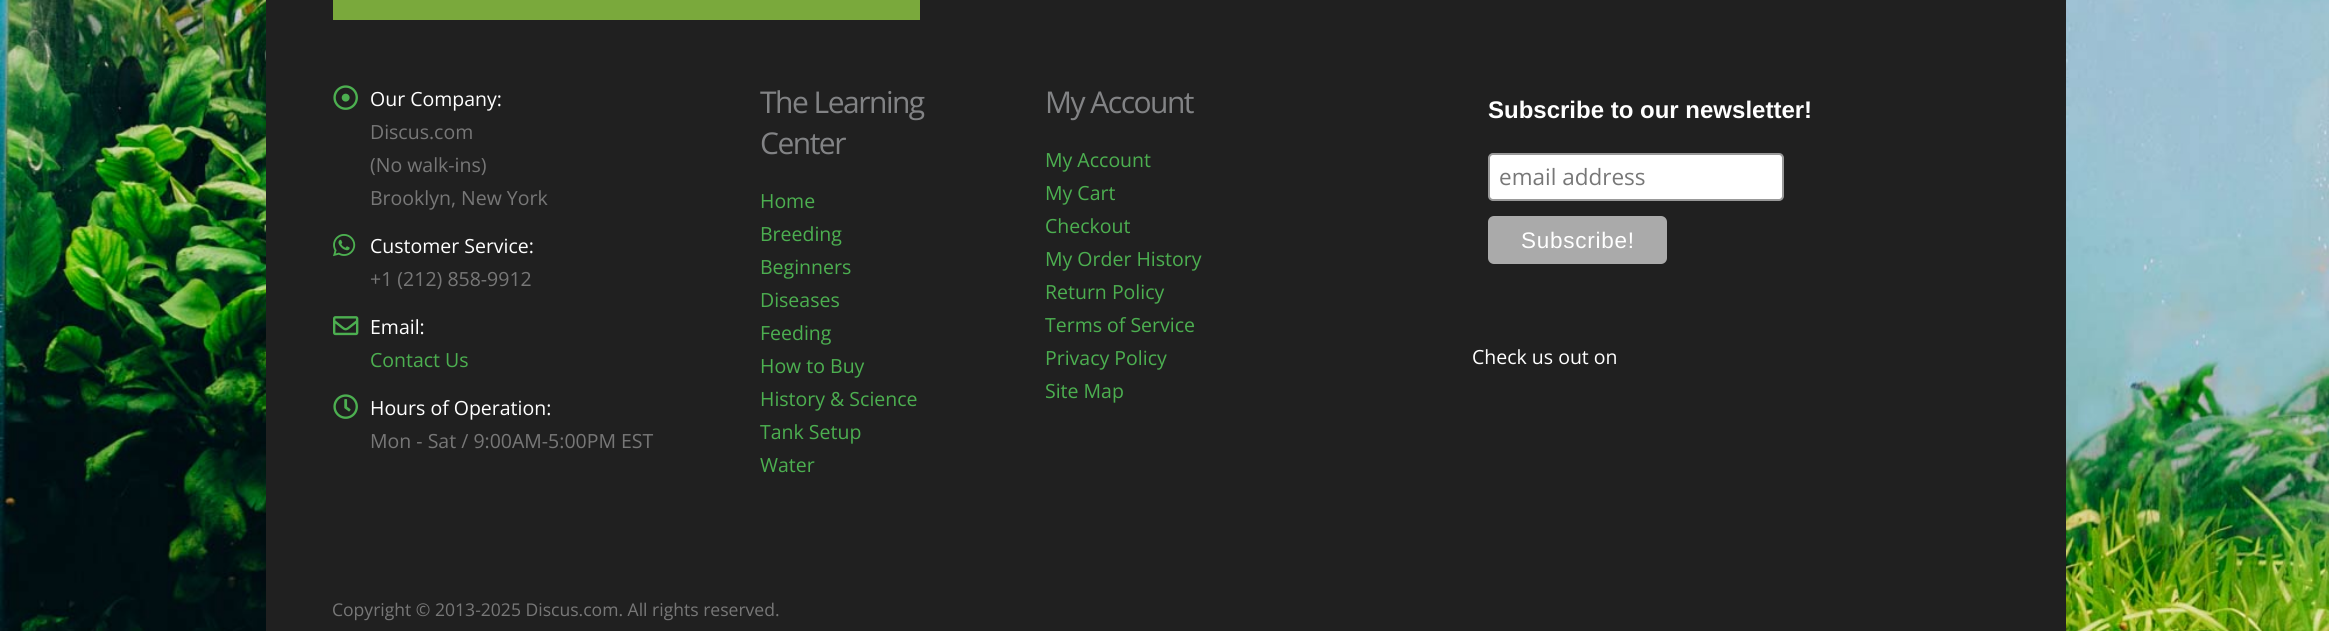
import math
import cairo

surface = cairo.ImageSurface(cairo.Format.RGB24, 2329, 631)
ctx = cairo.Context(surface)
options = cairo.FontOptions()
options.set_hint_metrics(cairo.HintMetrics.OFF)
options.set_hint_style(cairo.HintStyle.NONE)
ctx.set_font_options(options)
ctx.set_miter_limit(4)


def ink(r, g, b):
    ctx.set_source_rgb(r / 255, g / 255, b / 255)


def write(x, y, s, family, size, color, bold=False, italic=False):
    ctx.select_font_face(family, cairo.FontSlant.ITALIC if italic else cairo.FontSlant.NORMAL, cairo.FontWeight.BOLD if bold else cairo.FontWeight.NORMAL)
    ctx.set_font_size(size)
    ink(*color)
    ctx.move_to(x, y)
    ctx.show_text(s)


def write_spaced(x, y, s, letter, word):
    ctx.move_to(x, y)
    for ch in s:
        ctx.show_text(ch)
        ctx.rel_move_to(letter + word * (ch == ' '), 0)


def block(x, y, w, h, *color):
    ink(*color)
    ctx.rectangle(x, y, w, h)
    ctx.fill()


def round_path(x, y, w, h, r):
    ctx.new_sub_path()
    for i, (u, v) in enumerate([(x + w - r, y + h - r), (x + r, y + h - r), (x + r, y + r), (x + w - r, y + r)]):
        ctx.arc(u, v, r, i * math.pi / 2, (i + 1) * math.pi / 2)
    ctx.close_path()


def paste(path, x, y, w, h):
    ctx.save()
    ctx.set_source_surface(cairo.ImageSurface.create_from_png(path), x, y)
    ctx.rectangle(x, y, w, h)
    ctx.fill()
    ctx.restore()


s1 = dict(family="Open Sans", size=19.5, color=(255, 255, 255))
s2 = dict(family="Open Sans", size=19.5, color=(119, 119, 119))
s3 = dict(family="Open Sans", size=19.5, color=(76, 175, 80))
s4 = dict(family="Liberation Sans", size=24, color=(255, 255, 255), bold=True)
s5 = dict(family="Open Sans", size=22.5, color=(119, 119, 119))
s6 = dict(family="Open Sans", size=17.55, color=(119, 119, 119))

ink(255, 255, 255)
ctx.paint()
paste("pic1.png", 0, 0, 2329, 631)
block(266, 0, 1800, 631, 32, 32, 32)
block(333, 0, 587, 20, 122, 169, 60)
paste("pic2.png", 333, 85, 25, 25)
write(370, 106, "Our Company:", **s1)
write(370, 139, "Discus.com", **s2)
write(370, 172, "(No walk-ins)", **s2)
write(370, 205, "Brooklyn, New York", **s2)
paste("pic3.png", 333, 234, 23, 23)
write(370, 253, "Customer Service:", **s1)
write(370, 286, "+1 (212) 858-9912", **s2)
paste("pic4.png", 333, 316, 26, 20)
write(370, 334, "Email:", **s1)
write(370, 367, "Contact Us", **s3)
paste("pic5.png", 333, 394, 25, 25)
write(370, 415, "Hours of Operation:", **s1)
write(370, 448, "Mon - Sat / 9:00AM-5:00PM EST", **s2)
ctx.set_font_size(30)
ink(130, 131, 133)
write_spaced(760, 113, "The Learning", -1.5, 0)
write_spaced(760, 154, "Center", -1.5, 0)
write(760, 208, "Home", **s3)
write(760, 241, "Breeding", **s3)
write(760, 274, "Beginners", **s3)
write(760, 307, "Diseases", **s3)
write(760, 340, "Feeding", **s3)
write(760, 373, "How to Buy", **s3)
write(760, 406, "History & Science", **s3)
write(760, 439, "Tank Setup", **s3)
write(760, 472, "Water", **s3)
ctx.set_font_size(30)
ink(130, 131, 133)
write_spaced(1045, 113, "My Account", -1.5, 0)
write(1045, 167, "My Account", **s3)
write(1045, 200, "My Cart", **s3)
write(1045, 233, "Checkout", **s3)
write(1045, 266, "My Order History", **s3)
write(1045, 299, "Return Policy", **s3)
write(1045, 332, "Terms of Service", **s3)
write(1045, 365, "Privacy Policy", **s3)
write(1045, 398, "Site Map", **s3)
write(1488, 118, "Subscribe to our newsletter!", **s4)
round_path(1489, 154, 294, 46, 4)
ctx.fill_preserve()
ink(153, 153, 153)
ctx.stroke()
write(1499, 185, "email address", **s5)
ink(170, 170, 170)
round_path(1488, 216, 179, 48, 6)
ctx.fill()
ctx.select_font_face("Liberation Sans")
ink(255, 255, 255)
write_spaced(1521, 248, "Subscribe!", 0.75, 0)
write(1472, 364, "Check us out on", **s1)
write(332, 616, "Copyright © 2013-2025 Discus.com. All rights reserved.", **s6)
surface.write_to_png("screenshot.png")
